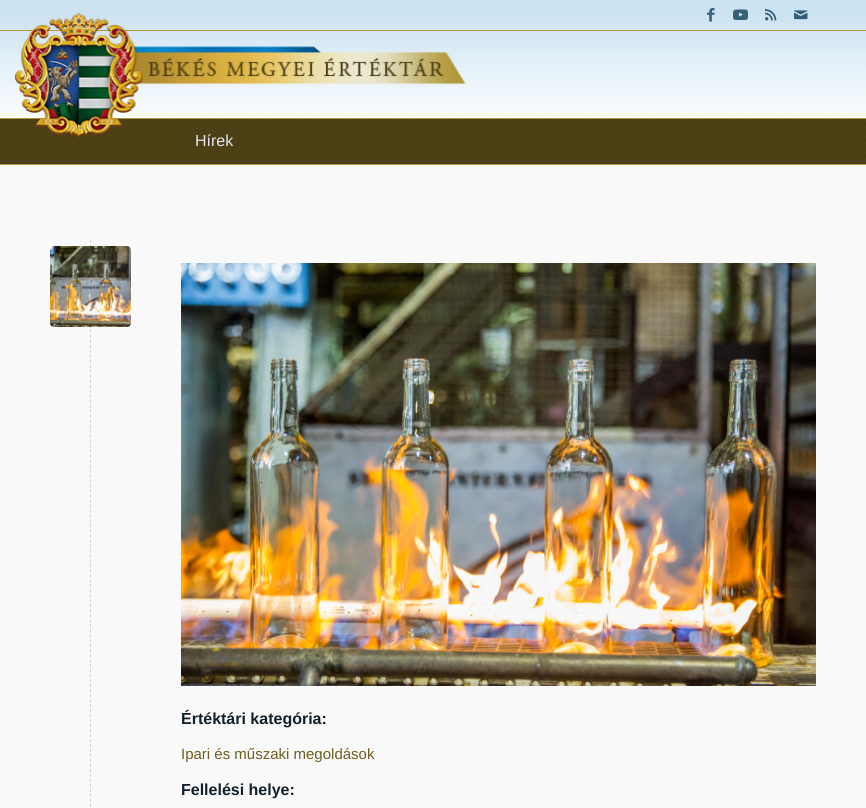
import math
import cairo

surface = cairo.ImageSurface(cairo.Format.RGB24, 866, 808)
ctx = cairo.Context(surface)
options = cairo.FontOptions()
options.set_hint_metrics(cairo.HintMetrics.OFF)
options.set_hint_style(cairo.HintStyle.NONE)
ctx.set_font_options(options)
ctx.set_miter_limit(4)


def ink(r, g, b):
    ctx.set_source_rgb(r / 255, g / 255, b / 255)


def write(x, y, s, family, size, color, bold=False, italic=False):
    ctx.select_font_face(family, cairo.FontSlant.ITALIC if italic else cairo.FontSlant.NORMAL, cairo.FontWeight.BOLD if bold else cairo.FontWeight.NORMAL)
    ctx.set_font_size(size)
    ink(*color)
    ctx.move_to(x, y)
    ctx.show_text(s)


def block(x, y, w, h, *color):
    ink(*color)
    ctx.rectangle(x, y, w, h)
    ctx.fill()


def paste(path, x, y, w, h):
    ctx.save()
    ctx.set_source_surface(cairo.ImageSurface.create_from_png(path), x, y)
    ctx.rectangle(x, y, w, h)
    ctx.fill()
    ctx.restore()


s1 = dict(family="Liberation Sans", size=16, color=(228, 230, 240))
s2 = dict(family="Liberation Sans", size=16, color=(17, 32, 42), bold=True)
s3 = dict(family="Liberation Sans", size=15, color=(111, 94, 31))

ink(77, 64, 20)
ctx.paint()
block(0, 117, 866, 1, 255, 255, 255)
paste("pic1.png", 0, 0, 866, 117)
block(0, 30, 866, 1, 178, 152, 56)
paste("pic2.png", 707, 8, 8, 14)
paste("pic3.png", 733, 9, 15, 11)
paste("pic4.png", 765, 9, 12, 12)
paste("pic5.png", 794, 10, 14, 10)
block(0, 118, 866, 1, 178, 152, 56)
paste("pic7.png", 0, 119, 866, 45)
write(195, 146, "Hírek", **s1)
paste("pic6.png", 15, 13, 451, 124)
block(0, 165, 866, 643, 249, 249, 249)
block(0, 164, 866, 1, 178, 152, 56)
ctx.new_path()
ctx.move_to(90.5, 240)
ctx.line_to(90.5, 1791)
ink(210, 210, 210)
ctx.set_line_width(1)
ctx.set_dash([3, 1.99])
ctx.stroke()
paste("pic8.png", 50, 246, 81, 81)
paste("pic9.png", 181, 263, 635, 423)
write(181, 724, "Értéktári kategória:", **s2)
write(181, 759, "Ipari és műszaki megoldások", **s3)
write(181, 795, "Fellelési helye:", **s2)
surface.write_to_png("screenshot.png")
